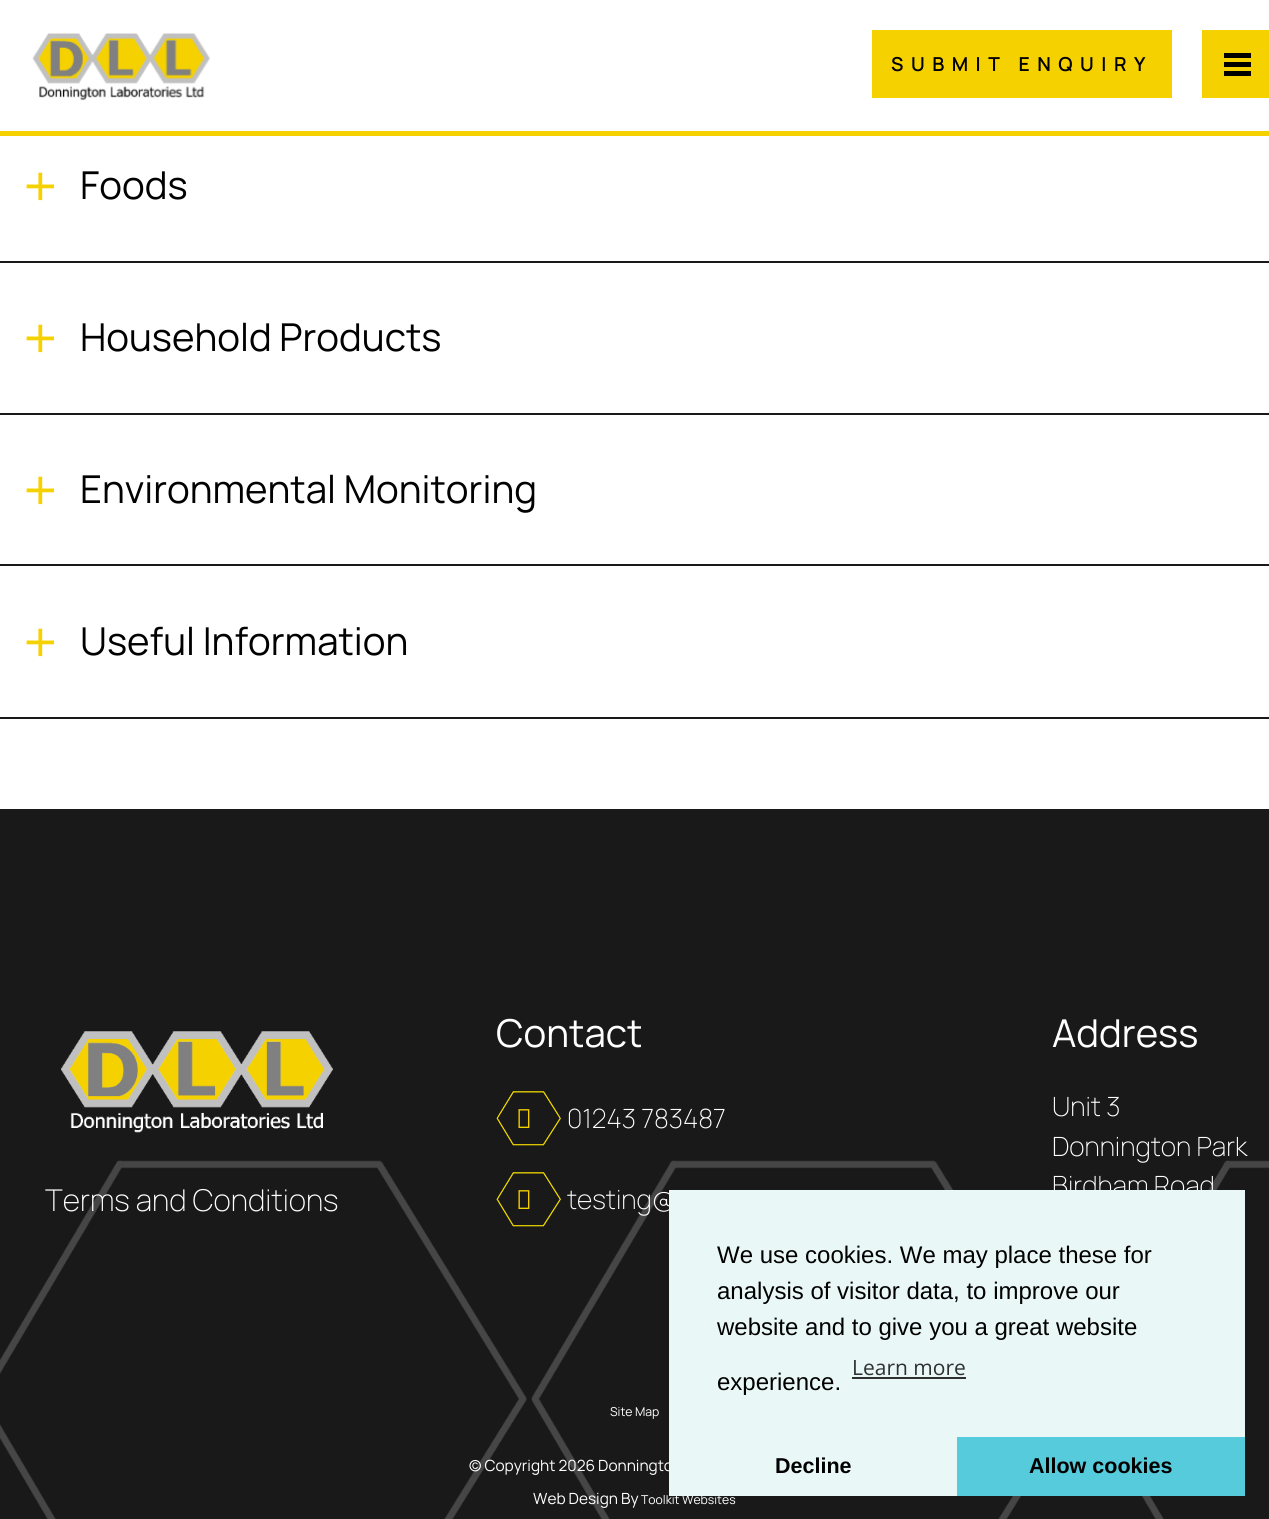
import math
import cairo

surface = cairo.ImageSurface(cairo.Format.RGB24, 1269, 1519)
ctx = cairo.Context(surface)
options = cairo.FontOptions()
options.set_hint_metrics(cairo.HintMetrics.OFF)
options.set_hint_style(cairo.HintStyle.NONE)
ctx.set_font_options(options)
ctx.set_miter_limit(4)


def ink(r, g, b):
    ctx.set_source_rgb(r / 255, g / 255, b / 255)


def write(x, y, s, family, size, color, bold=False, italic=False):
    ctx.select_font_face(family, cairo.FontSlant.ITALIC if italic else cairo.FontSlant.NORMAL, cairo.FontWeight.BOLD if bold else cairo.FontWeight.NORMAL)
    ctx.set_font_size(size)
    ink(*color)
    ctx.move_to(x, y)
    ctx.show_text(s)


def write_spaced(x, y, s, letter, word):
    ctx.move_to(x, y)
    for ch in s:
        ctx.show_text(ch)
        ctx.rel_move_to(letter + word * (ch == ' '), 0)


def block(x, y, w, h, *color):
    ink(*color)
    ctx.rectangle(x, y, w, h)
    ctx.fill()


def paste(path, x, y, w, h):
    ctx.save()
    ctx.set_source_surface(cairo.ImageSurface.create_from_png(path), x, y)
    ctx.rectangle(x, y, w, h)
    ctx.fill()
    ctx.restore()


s1 = dict(family="Manrope", size=60, color=(246, 209, 0))
s2 = dict(family="Manrope", size=38.4, color=(0, 0, 0))
s3 = dict(family="Manrope", size=38.4, color=(255, 255, 255))
s4 = dict(family="Manrope ExtraLight", size=26.5, color=(255, 255, 255))
s5 = dict(family="Manrope ExtraLight", size=30, color=(255, 255, 255))
s6 = dict(family="Manrope", size=12.25, color=(255, 255, 255))
s7 = dict(family="Manrope", size=15.4, color=(255, 255, 255))
s8 = dict(family="Liberation Sans", size=24, color=(0, 0, 0))
s9 = dict(family="Open Sans", size=21, color=(47, 49, 49))
s10 = dict(family="Liberation Sans", size=21.5, color=(0, 0, 0), bold=True)

ink(255, 255, 255)
ctx.paint()
block(0, 131, 1269, 5, 246, 209, 0)
paste("pic1.png", 32, 33, 178, 68)
block(872, 30, 300, 68, 246, 209, 0)
ctx.select_font_face("Manrope SemiBold")
ctx.set_font_size(19.25)
ink(0, 0, 0)
write_spaced(891, 71, "SUBMIT ENQUIRY", 7.5, 0)
block(1202, 30, 67, 68, 246, 209, 0)
block(1224, 62, 27, 5, 0, 0, 0)
block(1224, 71, 27, 5, 0, 0, 0)
block(1224, 53, 27, 5, 0, 0, 0)
write(23, 208, "+", **s1)
write(80, 199, "Foods", **s2)
block(0, 261, 1269, 2, 25, 25, 25)
write(23, 360, "+", **s1)
write(80, 351, "Household Products", **s2)
block(0, 413, 1269, 2, 25, 25, 25)
write(23, 512, "+", **s1)
write(80, 503, "Environmental Monitoring", **s2)
block(0, 564, 1269, 2, 25, 25, 25)
block(0, 717, 1269, 2, 25, 25, 25)
write(23, 664, "+", **s1)
write(80, 655, "Useful Information", **s2)
block(0, 809, 1269, 710, 25, 25, 25)
paste("pic2.png", 0, 1160, 1269, 359)
write(496, 1047, "Contact", **s3)
paste("pic3.png", 496, 1091, 65, 55)
paste("pic4.png", 518, 1109, 12, 19)
write(567, 1128, "01243 783487", **s4)
paste("pic5.png", 496, 1172, 65, 55)
paste("pic4.png", 518, 1190, 12, 19)
write(567, 1209, "testing@", **s4)
write(1052, 1047, "Address", **s3)
write(1052, 1116, "Unit 3", **s4)
write(1052, 1156, "Donnington Park", **s4)
write(1052, 1195, "Birdham Road", **s4)
paste("pic6.png", 61, 1031, 272, 102)
write(45, 1211, "Terms and Conditions", **s5)
write(610, 1416, "Site Map", **s6)
write(469, 1471, "© Copyright 2026 Donningto", **s7)
write(533, 1504, "Web Design By", **s7)
write(641, 1504, "Toolkit Websites", **s6)
block(669, 1190, 576, 306, 234, 247, 247)
write(717, 1263, "We use cookies. We may place these for", **s8)
write(717, 1299, "analysis of visitor data, to improve our", **s8)
write(717, 1335, "website and to give you a great website", **s8)
write(852, 1375, "Learn more", **s9)
block(852, 1377, 114, 2, 47, 49, 49)
write(717, 1390, "experience.", **s8)
write(775, 1473, "Decline", **s10)
block(957, 1437, 288, 59, 86, 203, 219)
write(1029, 1473, "Allow cookies", **s10)
surface.write_to_png("screenshot.png")
